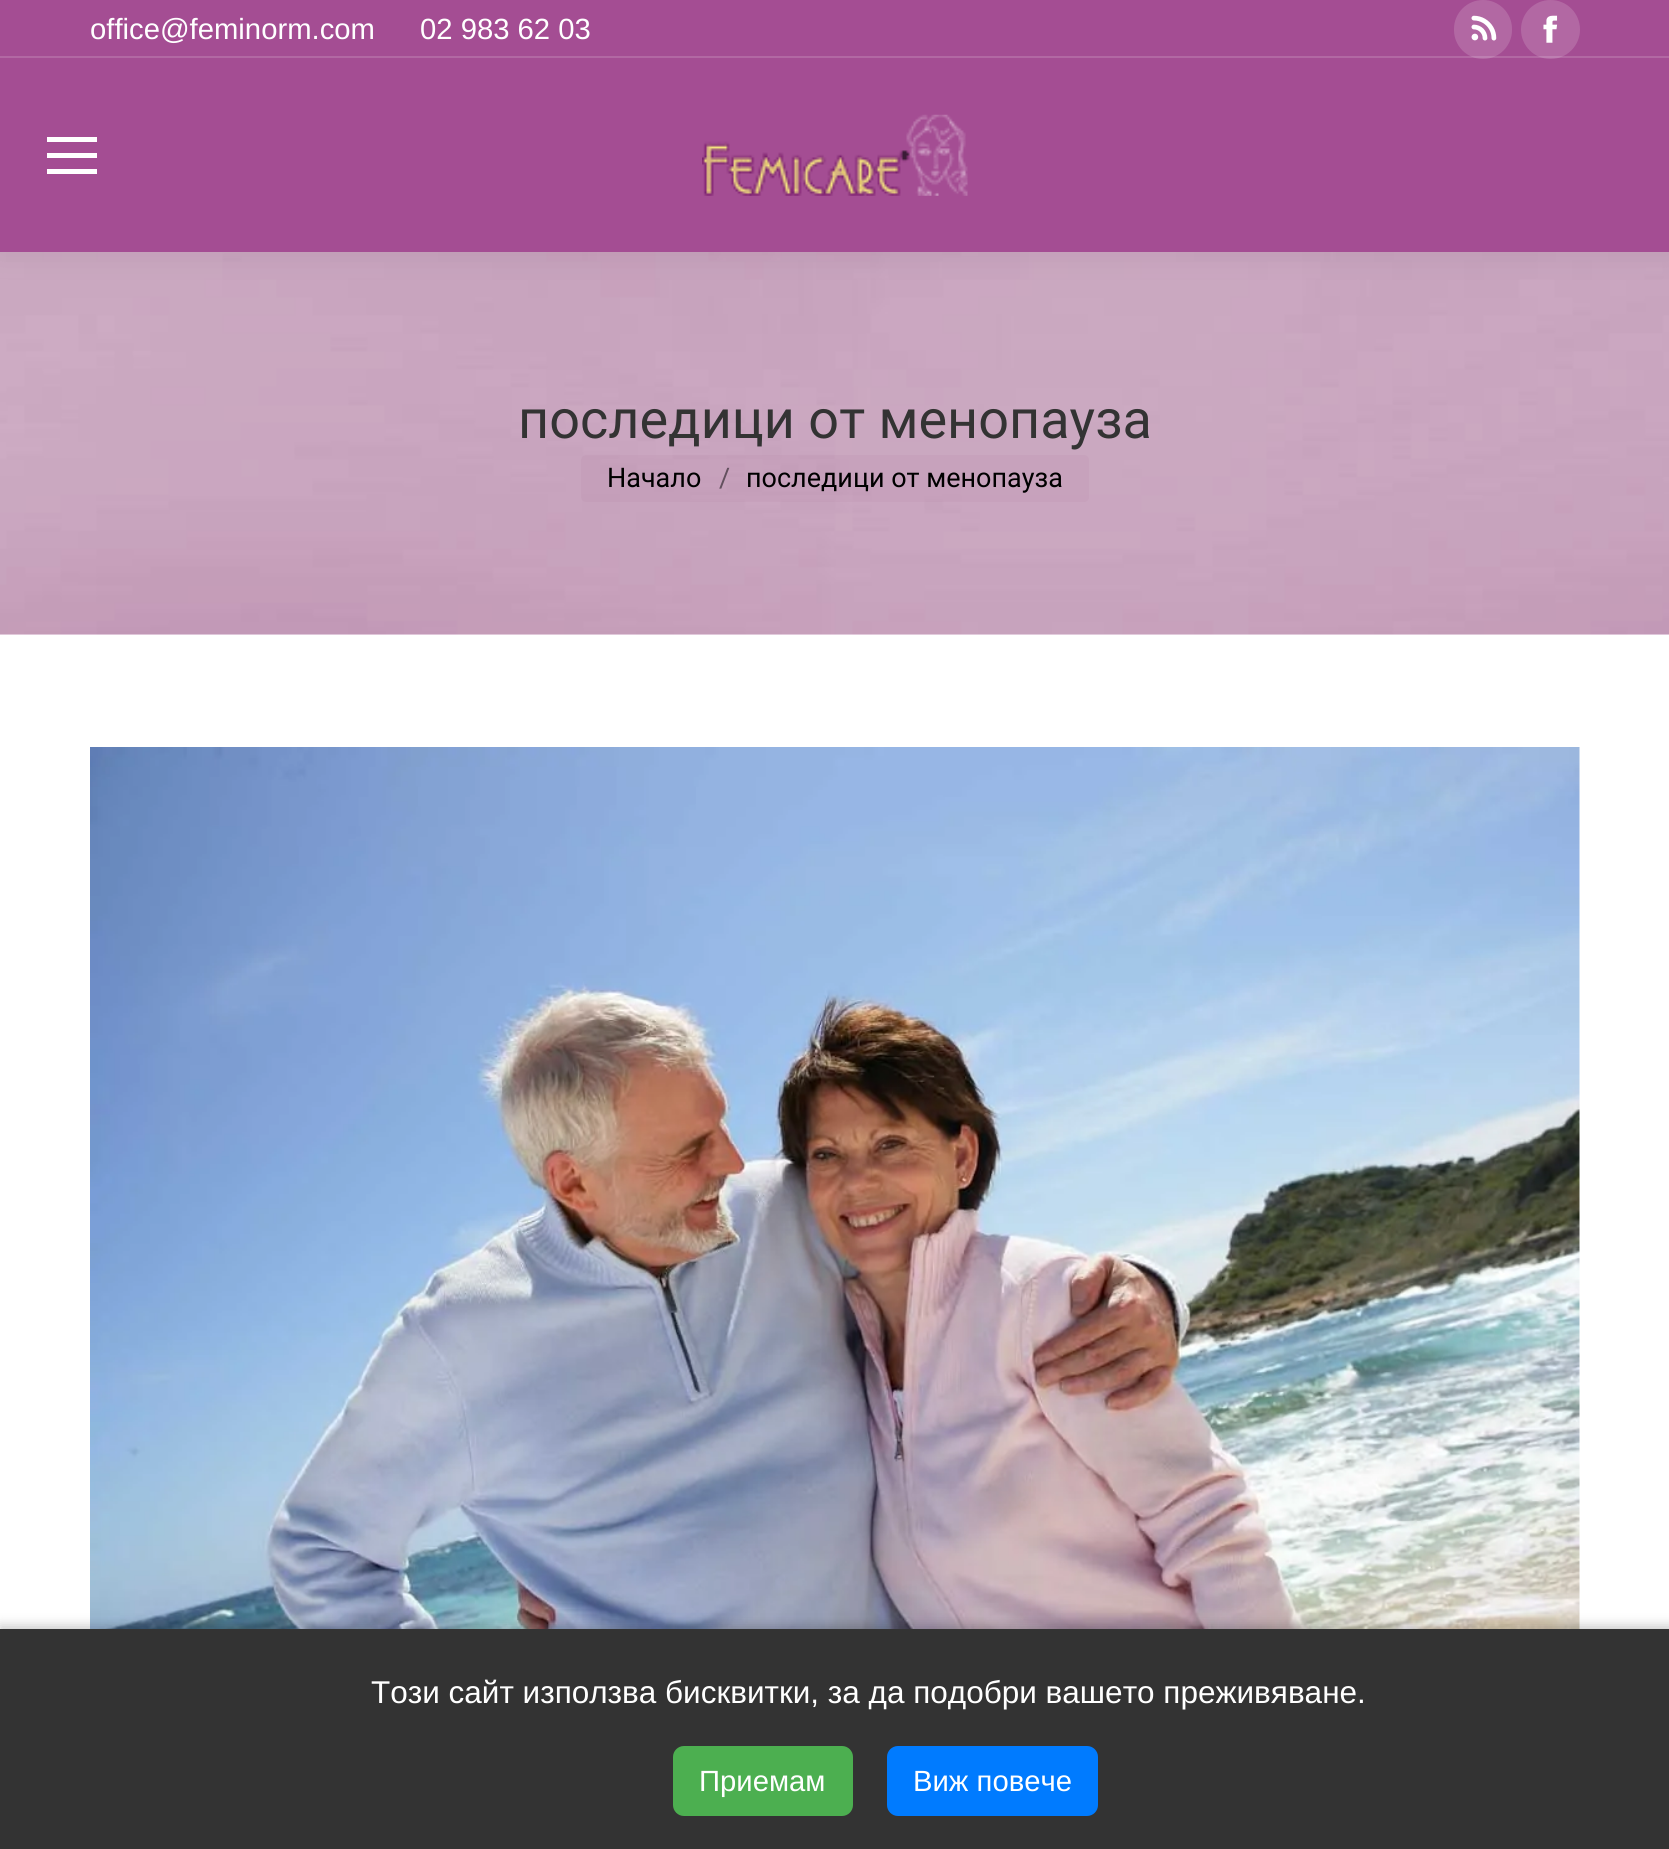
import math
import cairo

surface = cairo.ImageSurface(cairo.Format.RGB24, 1669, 1849)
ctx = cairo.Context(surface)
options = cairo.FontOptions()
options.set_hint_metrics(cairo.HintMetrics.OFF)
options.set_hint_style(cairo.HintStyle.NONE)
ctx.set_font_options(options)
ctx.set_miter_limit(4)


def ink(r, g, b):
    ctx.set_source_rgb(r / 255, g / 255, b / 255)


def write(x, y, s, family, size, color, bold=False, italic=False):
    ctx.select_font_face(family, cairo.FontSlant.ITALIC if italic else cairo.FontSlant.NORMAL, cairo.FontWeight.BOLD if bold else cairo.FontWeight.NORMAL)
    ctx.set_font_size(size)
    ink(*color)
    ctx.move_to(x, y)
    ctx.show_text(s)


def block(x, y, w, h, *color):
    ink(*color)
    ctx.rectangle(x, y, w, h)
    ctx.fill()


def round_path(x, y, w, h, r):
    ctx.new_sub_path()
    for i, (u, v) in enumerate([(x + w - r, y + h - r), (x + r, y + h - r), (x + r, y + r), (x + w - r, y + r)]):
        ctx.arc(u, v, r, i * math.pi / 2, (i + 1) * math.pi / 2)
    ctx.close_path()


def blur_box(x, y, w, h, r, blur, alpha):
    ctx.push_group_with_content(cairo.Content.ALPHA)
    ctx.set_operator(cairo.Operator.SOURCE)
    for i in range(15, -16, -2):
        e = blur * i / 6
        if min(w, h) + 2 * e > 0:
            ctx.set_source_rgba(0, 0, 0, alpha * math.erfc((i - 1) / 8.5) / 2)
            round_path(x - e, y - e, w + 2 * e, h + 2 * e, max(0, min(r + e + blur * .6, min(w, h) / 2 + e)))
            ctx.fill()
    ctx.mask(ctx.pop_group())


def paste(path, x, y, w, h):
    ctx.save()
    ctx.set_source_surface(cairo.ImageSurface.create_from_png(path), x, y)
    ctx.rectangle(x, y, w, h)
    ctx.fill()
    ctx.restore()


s1 = dict(family="Liberation Sans", size=29.25, color=(255, 255, 255))
s2 = dict(family="Roboto", size=54, color=(51, 51, 51))
s3 = dict(family="Roboto", size=27, color=(0, 0, 0))
s4 = dict(family="Roboto", size=27, color=(99, 80, 94))
s5 = dict(family="Liberation Sans", size=31.5, color=(255, 255, 255))

ink(255, 255, 255)
ctx.paint()
block(0, 634, 1669, 1, 253, 244, 253)
paste("pic4.png", 0, 252, 1669, 383)
ink(0, 0, 0)
blur_box(-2, -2, 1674, 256, 0, 17, 0.07)
block(0, 0, 1669, 252, 164, 77, 147)
write(90, 39, "office@feminorm.com", **s1)
write(420, 39, "02 983 62 03", **s1)
ink(178, 104, 163)
round_path(1454, 0, 58, 59, 29)
ctx.fill()
paste("pic1.png", 1471, 15, 26, 26)
ctx.arc(1550.5, 29.5, 29.5, 0, 2 * math.pi)
ctx.fill()
paste("pic2.png", 1543, 15, 15, 28)
ctx.set_source_rgba(1, 1, 1, 0.15)
ctx.rectangle(0, 56, 1669, 2)
ctx.fill()
block(47, 137, 50, 5, 255, 255, 255)
block(47, 153, 50, 5, 255, 255, 255)
block(47, 169, 50, 5, 255, 255, 255)
paste("pic3.png", 702, 114, 266, 82)
write(518, 438, "последици от менопауза", **s2)
ctx.set_source_rgba(0.725, 0.549, 0.678, 0.2)
round_path(581, 455, 508, 47, 5)
ctx.fill()
write(607, 487, "Начало", **s3)
write(719, 487, "/", **s4)
write(746, 487, "последици от менопауза", **s3)
paste("pic5.png", 90, 747, 1490, 882)
ink(0, 0, 0)
blur_box(0, 1625, 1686, 220, 0, 5.5, 0.2)
block(0, 1629, 1669, 220, 51, 51, 51)
write(371, 1703, "Този сайт използва бисквитки, за да подобри вашето преживяване.", **s5)
ink(76, 175, 80)
round_path(673, 1746, 180, 70, 11)
ctx.fill()
write(699, 1791, "Приемам", **s1)
ink(0, 123, 255)
round_path(887, 1746, 211, 70, 11)
ctx.fill()
write(913, 1791, "Виж повече", **s1)
surface.write_to_png("screenshot.png")
